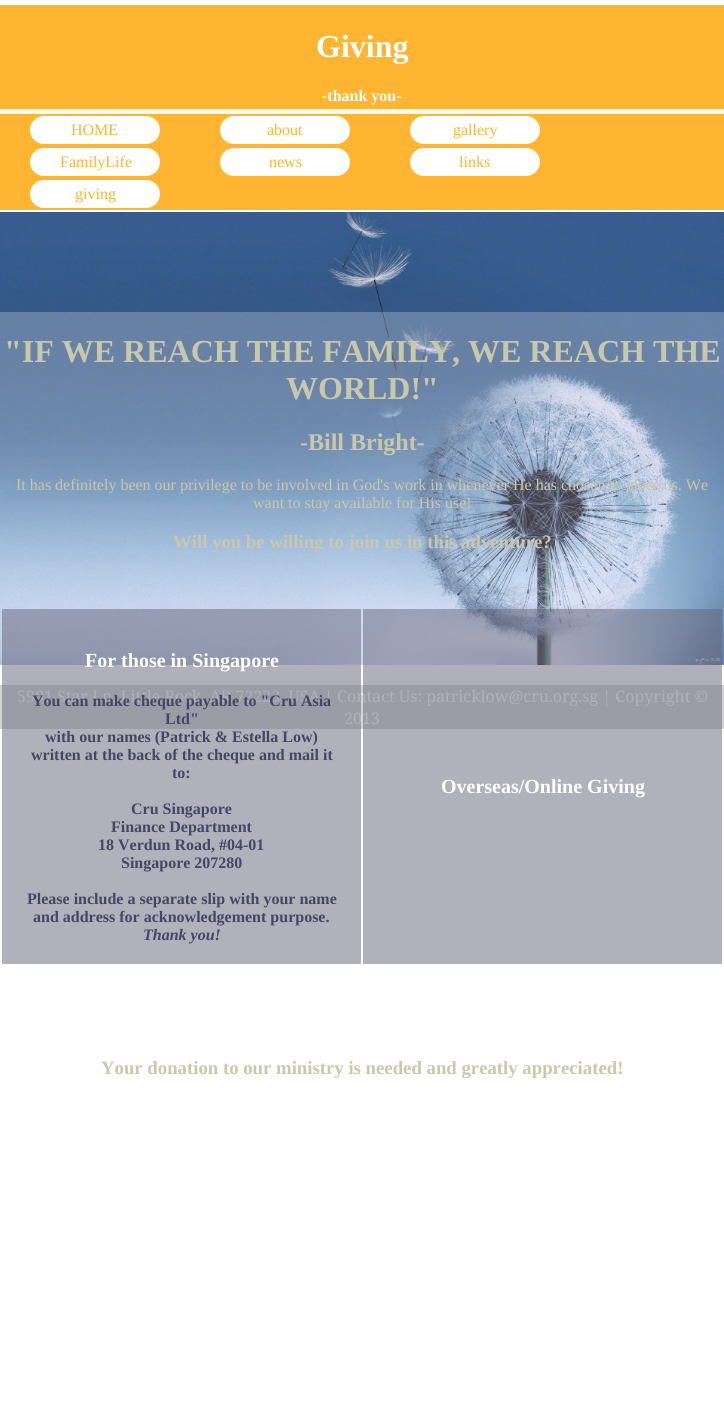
import math
import cairo

surface = cairo.ImageSurface(cairo.Format.RGB24, 724, 1423)
ctx = cairo.Context(surface)
options = cairo.FontOptions()
options.set_hint_metrics(cairo.HintMetrics.OFF)
options.set_hint_style(cairo.HintStyle.NONE)
ctx.set_font_options(options)
ctx.set_miter_limit(4)


def ink(r, g, b):
    ctx.set_source_rgb(r / 255, g / 255, b / 255)


def write(x, y, s, family, size, color, bold=False, italic=False):
    ctx.select_font_face(family, cairo.FontSlant.ITALIC if italic else cairo.FontSlant.NORMAL, cairo.FontWeight.BOLD if bold else cairo.FontWeight.NORMAL)
    ctx.set_font_size(size)
    ink(*color)
    ctx.move_to(x, y)
    ctx.show_text(s)


def block(x, y, w, h, *color):
    ink(*color)
    ctx.rectangle(x, y, w, h)
    ctx.fill()


def round_path(x, y, w, h, r):
    ctx.new_sub_path()
    for i, (u, v) in enumerate([(x + w - r, y + h - r), (x + r, y + h - r), (x + r, y + r), (x + w - r, y + r)]):
        ctx.arc(u, v, r, i * math.pi / 2, (i + 1) * math.pi / 2)
    ctx.close_path()


def paste(path, x, y, w, h):
    ctx.save()
    ctx.set_source_surface(cairo.ImageSurface.create_from_png(path), x, y)
    ctx.rectangle(x, y, w, h)
    ctx.fill()
    ctx.restore()


s1 = dict(family="Liberation Serif", size=32, color=(255, 255, 255), bold=True)
s2 = dict(family="Liberation Serif", size=16, color=(255, 255, 255), bold=True)
s3 = dict(family="Liberation Serif", size=16, color=(255, 180, 50))
s4 = dict(family="Noto Serif", size=16, color=(255, 255, 255))
s5 = dict(family="Liberation Serif", size=32, color=(200, 200, 170), bold=True)
s6 = dict(family="Liberation Serif", size=24, color=(200, 200, 170), bold=True)
s7 = dict(family="Liberation Serif", size=16, color=(200, 200, 170))
s8 = dict(family="Liberation Serif", size=18.75, color=(200, 200, 170), bold=True)
s9 = dict(family="Liberation Serif", size=20, color=(255, 255, 255), bold=True)
s10 = dict(family="Liberation Serif", size=16, color=(70, 70, 100), bold=True)
s11 = dict(family="Liberation Serif", size=16, color=(70, 70, 100), bold=True, italic=True)

ink(255, 255, 255)
ctx.paint()
block(0, 5, 724, 104, 255, 180, 50)
write(316, 57, "Giving", **s1)
write(322, 101, "-thank you-", **s2)
block(0, 114, 724, 96, 255, 180, 50)
ink(255, 255, 255)
round_path(30, 116, 130, 28, 14)
ctx.fill()
write(71, 135, "HOME", **s3)
ink(255, 255, 255)
round_path(220, 116, 130, 28, 14)
ctx.fill()
write(267, 135, "about", **s3)
ink(255, 255, 255)
round_path(410, 116, 130, 28, 14)
ctx.fill()
write(453, 135, "gallery", **s3)
ink(255, 255, 255)
round_path(30, 148, 130, 28, 14)
ctx.fill()
write(60, 167, "FamilyLife", **s3)
ink(255, 255, 255)
round_path(220, 148, 130, 28, 14)
ctx.fill()
write(269, 167, "news", **s3)
ink(255, 255, 255)
round_path(410, 148, 130, 28, 14)
ctx.fill()
write(459, 167, "links", **s3)
ink(255, 255, 255)
round_path(30, 180, 130, 28, 14)
ctx.fill()
write(75, 199, "giving", **s3)
paste("pic1.png", 0, 212, 724, 453)
block(0, 685, 724, 44, 200, 200, 200)
write(17, 702, "5901 Star Ln, Little Rock, AR 72223, USA | Contact Us: patricklow@cru.org.sg | Copyright ©", **s4)
write(344, 724, "2013", **s4)
ctx.set_source_rgba(0.98, 0.98, 0.98, 0.25)
ctx.rectangle(0, 312, 724, 417)
ctx.fill()
write(4, 362, "\"IF WE REACH THE FAMILY, WE REACH THE", **s5)
write(286, 399, "WORLD!\"", **s5)
write(300, 450, "-Bill Bright-", **s6)
write(16, 490, "It has definitely been our privilege to be involved in God's work in whenever He has chosen to place us. We", **s7)
write(253, 508, "want to stay available for His use!", **s7)
write(173, 548, "Will you be willing to join us in this adventure?", **s8)
ctx.set_source_rgba(0.392, 0.392, 0.471, 0.5)
ctx.rectangle(2, 609, 359, 355)
ctx.fill()
write(85, 667, "For those in Singapore", **s9)
write(32, 706, "You can make cheque payable to \"Cru Asia", **s10)
write(165, 724, "Ltd\"", **s10)
write(45, 742, "with our names (Patrick & Estella Low)", **s10)
write(31, 760, "written at the back of the cheque and mail it", **s10)
write(172, 778, "to:", **s10)
write(131, 814, "Cru Singapore", **s10)
write(111, 832, "Finance Department", **s10)
write(98, 850, "18 Verdun Road, #04-01", **s10)
write(121, 868, "Singapore 207280", **s10)
write(27, 904, "Please include a separate slip with your name", **s10)
write(33, 922, "and address for acknowledgement purpose.", **s10)
write(143, 940, "Thank you!", **s11)
ctx.set_source_rgba(0.392, 0.392, 0.471, 0.5)
ctx.rectangle(363, 609, 359, 355)
ctx.fill()
write(441, 793, "Overseas/Online Giving", **s9)
write(101, 1074, "Your donation to our ministry is needed and greatly appreciated!", **s8)
surface.write_to_png("screenshot.png")
